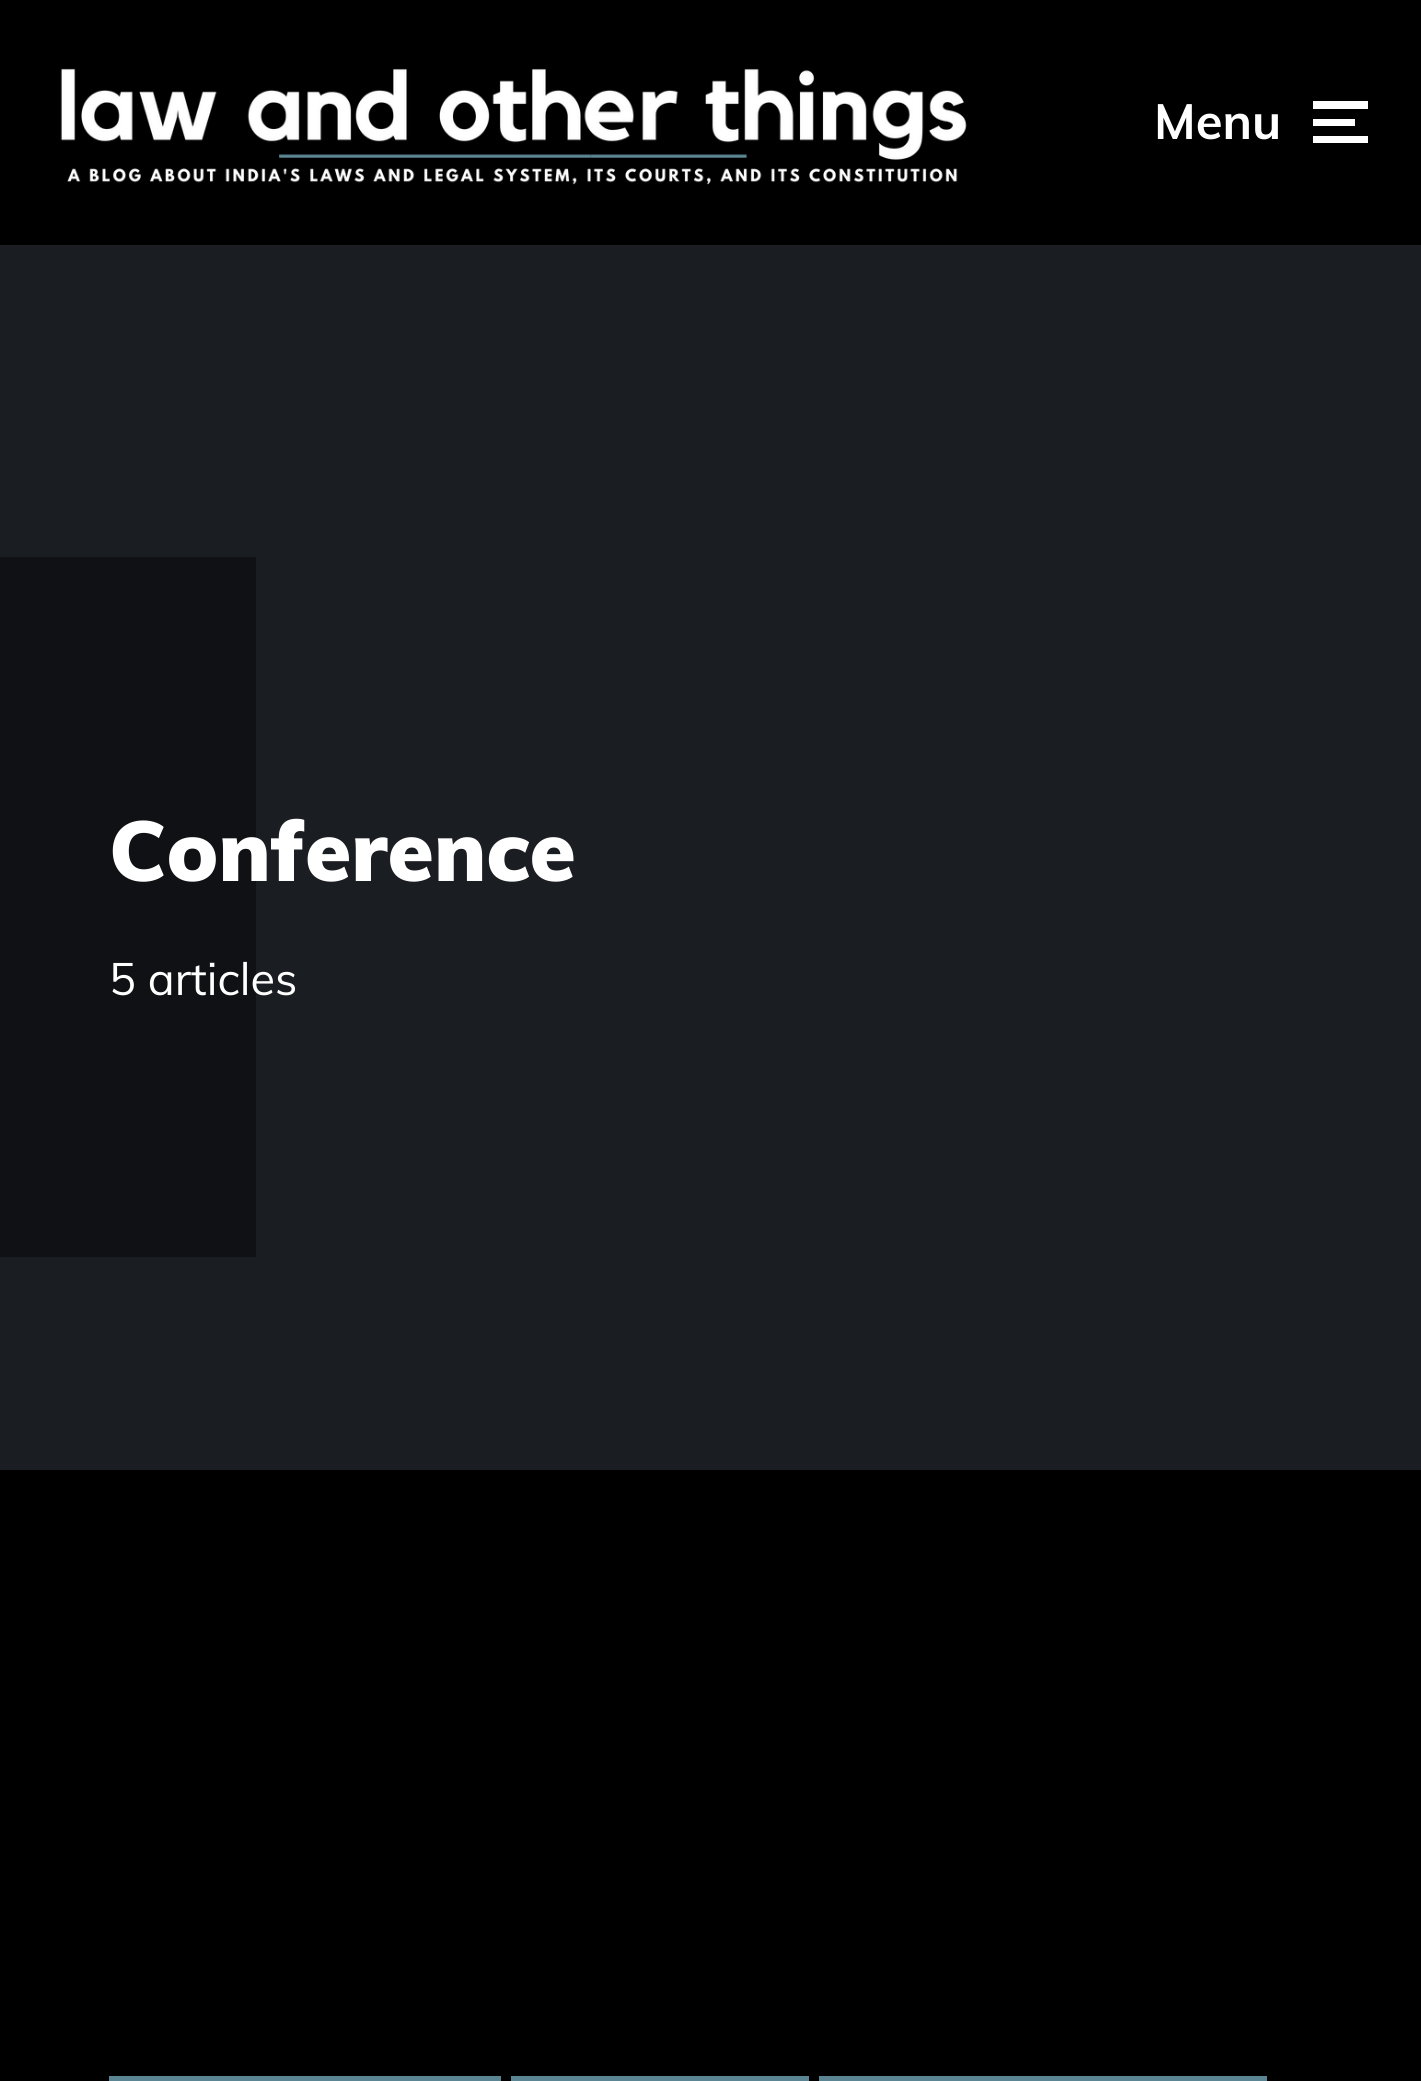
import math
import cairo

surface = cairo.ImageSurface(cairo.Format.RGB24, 1421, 2081)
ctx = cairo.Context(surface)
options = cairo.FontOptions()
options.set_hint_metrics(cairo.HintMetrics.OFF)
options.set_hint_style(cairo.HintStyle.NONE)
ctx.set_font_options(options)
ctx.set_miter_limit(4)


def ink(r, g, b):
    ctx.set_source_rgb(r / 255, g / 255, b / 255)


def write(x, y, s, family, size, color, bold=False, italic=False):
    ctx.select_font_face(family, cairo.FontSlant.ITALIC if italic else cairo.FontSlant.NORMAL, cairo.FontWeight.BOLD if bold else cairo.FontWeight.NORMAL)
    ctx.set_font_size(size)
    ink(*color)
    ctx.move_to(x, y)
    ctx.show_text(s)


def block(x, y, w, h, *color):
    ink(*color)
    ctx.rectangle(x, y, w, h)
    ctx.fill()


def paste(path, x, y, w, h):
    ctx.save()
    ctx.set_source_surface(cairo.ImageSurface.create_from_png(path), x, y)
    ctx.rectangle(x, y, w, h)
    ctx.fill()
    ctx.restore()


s1 = dict(family="Muli", size=49, color=(255, 255, 255), bold=True)
s2 = dict(family="Muli Black", size=84, color=(255, 255, 255))
s3 = dict(family="Muli", size=45, color=(255, 255, 255))

ink(0, 0, 0)
ctx.paint()
paste("pic1.png", 60, 68, 907, 117)
write(1154, 139, "Menu", **s1)
ctx.new_path()
ctx.move_to(1313, 126)
ctx.line_to(1313, 119)
ctx.line_to(1355, 119)
ctx.line_to(1355, 126)
ctx.close_path()
ctx.move_to(1313, 143)
ctx.line_to(1313, 136)
ctx.line_to(1368, 136)
ctx.line_to(1368, 143)
ctx.close_path()
ctx.move_to(1313, 109)
ctx.line_to(1313, 101)
ctx.line_to(1368, 101)
ctx.line_to(1368, 109)
ctx.close_path()
ctx.fill()
block(0, 245, 1421, 1225, 26, 29, 33)
block(0, 557, 256, 700, 16, 17, 20)
write(109, 881, "Conference", **s2)
write(109, 995, "5 articles", **s3)
block(109, 2076, 392, 5, 91, 133, 146)
block(511, 2076, 298, 5, 91, 133, 146)
block(819, 2076, 448, 5, 91, 133, 146)
surface.write_to_png("screenshot.png")
